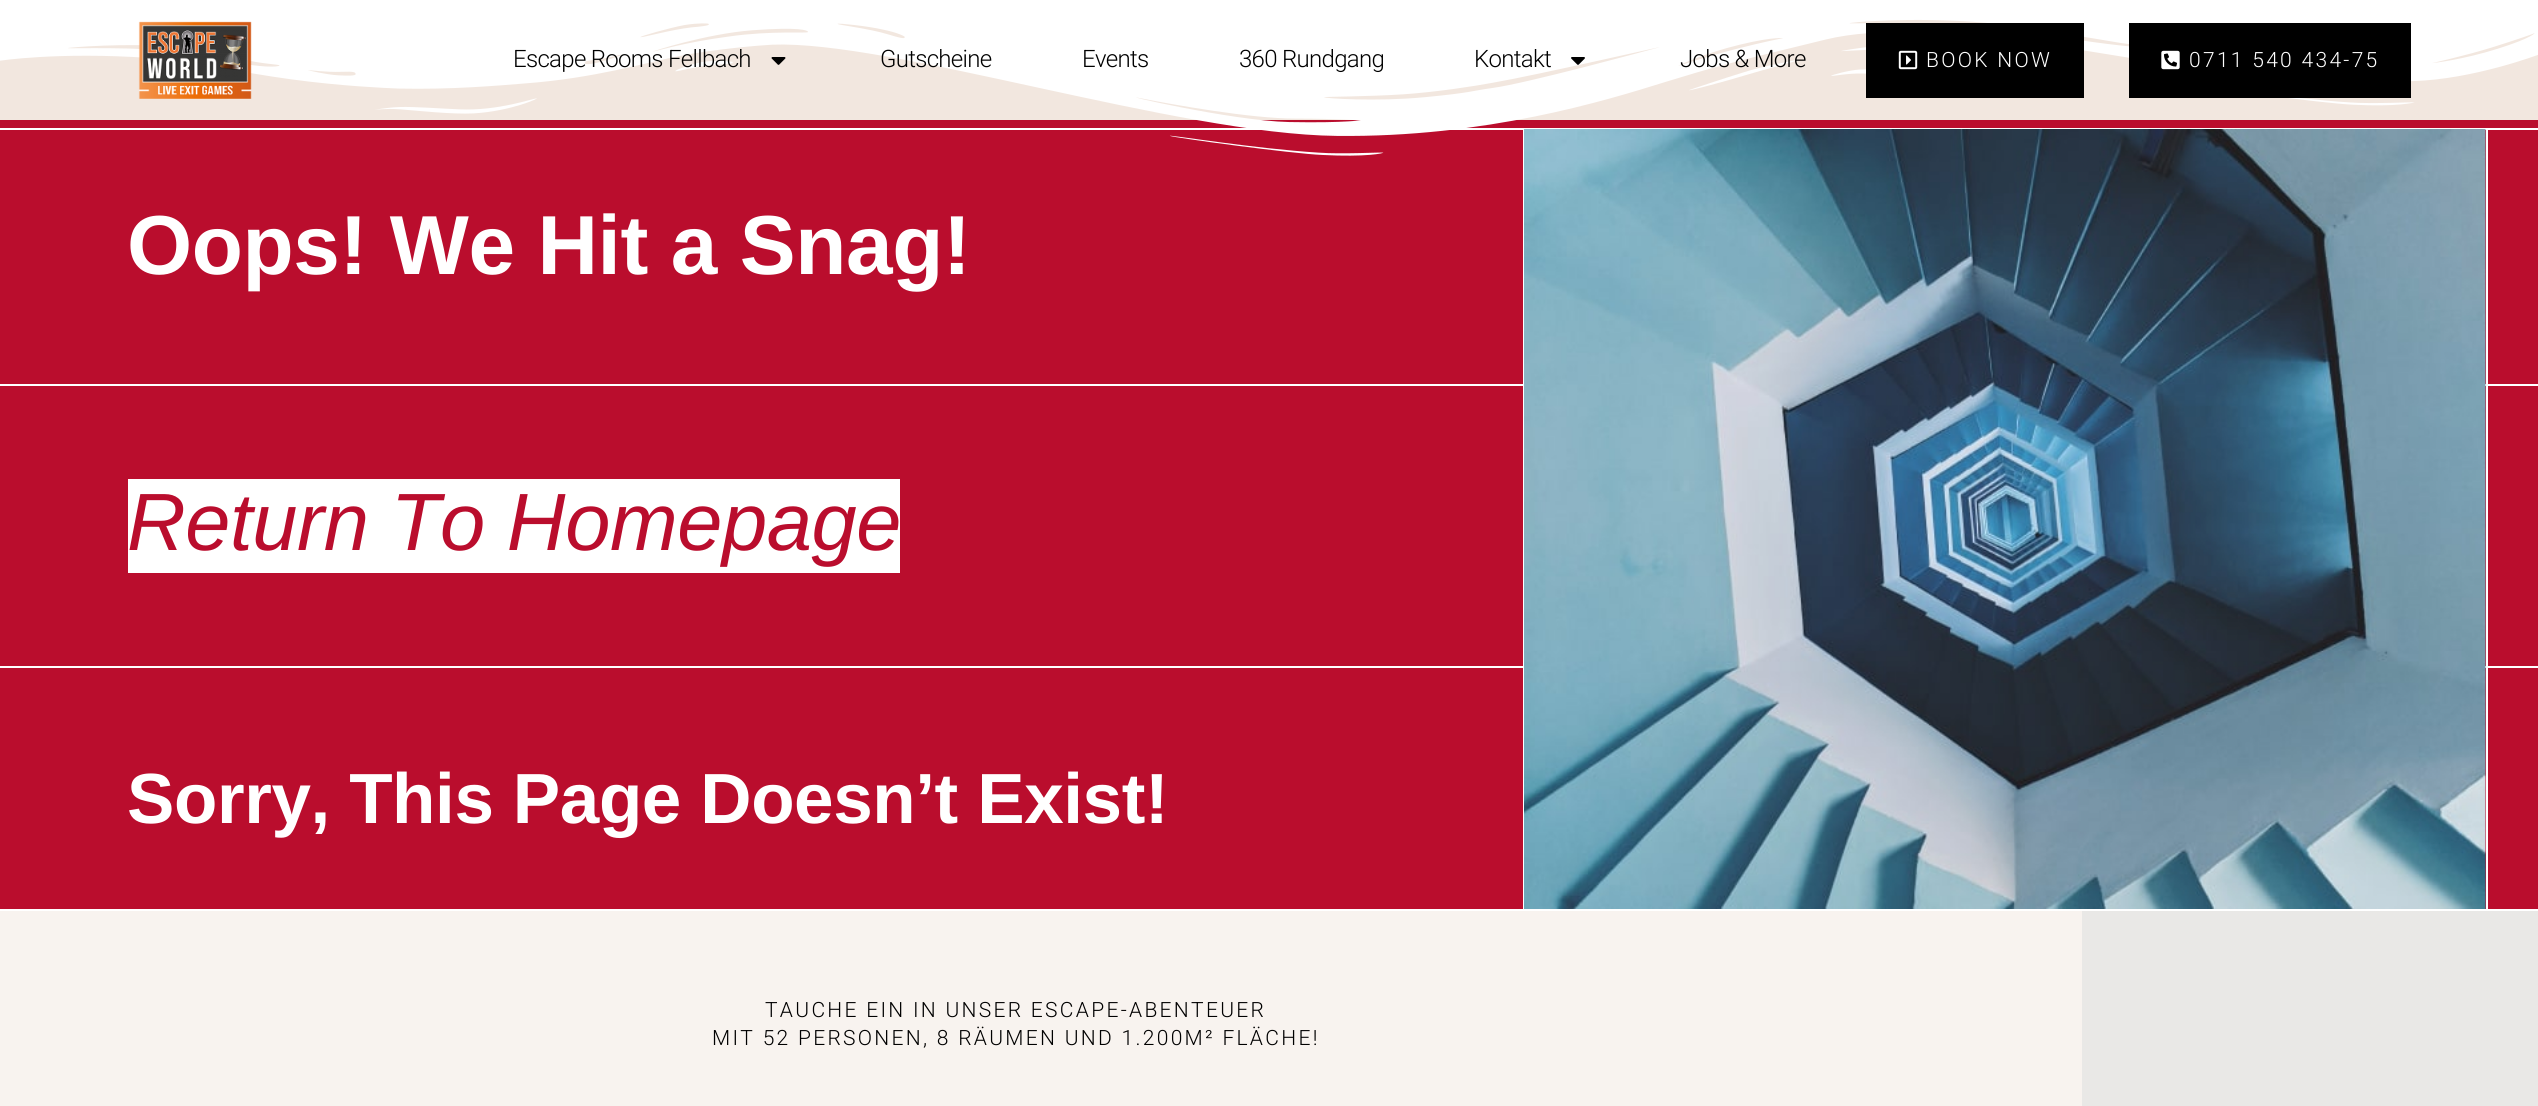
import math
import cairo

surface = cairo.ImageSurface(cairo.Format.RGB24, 2538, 1106)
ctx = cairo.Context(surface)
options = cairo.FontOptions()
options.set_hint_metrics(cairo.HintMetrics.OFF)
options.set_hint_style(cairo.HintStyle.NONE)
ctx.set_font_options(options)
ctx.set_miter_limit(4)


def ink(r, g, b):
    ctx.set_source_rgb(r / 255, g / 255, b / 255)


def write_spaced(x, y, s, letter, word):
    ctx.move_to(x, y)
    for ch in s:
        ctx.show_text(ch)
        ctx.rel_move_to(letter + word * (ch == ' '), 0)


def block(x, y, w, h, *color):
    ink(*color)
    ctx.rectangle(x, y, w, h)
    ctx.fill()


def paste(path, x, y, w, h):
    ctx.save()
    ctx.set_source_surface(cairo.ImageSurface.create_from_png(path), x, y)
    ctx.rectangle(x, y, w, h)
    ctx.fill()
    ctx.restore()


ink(233, 232, 230)
ctx.paint()
block(0, 19, 2538, 101, 242, 231, 223)
block(0, 120, 2538, 789, 186, 13, 45)
block(0, 128, 2538, 2, 255, 255, 255)
block(0, 384, 2538, 2, 255, 255, 255)
block(0, 666, 2538, 2, 255, 255, 255)
block(2486, 129, 2, 780, 255, 255, 255)
block(1523, 129, 1, 780, 255, 255, 255)
paste("pic7.png", 1524, 129, 962, 780)
paste("pic1.png", 0, 0, 2538, 156)
paste("pic2.png", 138, 21, 114, 78)
ctx.select_font_face("Roboto Light")
ctx.set_font_size(24)
ink(0, 0, 0)
write_spaced(513, 67, "Escape Rooms Fellbach", -0.7, 0)
paste("pic3.png", 771, 57, 15, 8)
write_spaced(880, 67, "Gutscheine", -0.7, 0)
write_spaced(1082, 67, "Events", -0.7, 0)
write_spaced(1239, 67, "360 Rundgang", -0.7, 0)
write_spaced(1474, 67, "Kontakt", -0.7, 0)
paste("pic4.png", 1571, 57, 14, 8)
write_spaced(1680, 67, "Jobs & More", -0.7, 0)
block(1866, 23, 218, 75, 0, 0, 0)
paste("pic5.png", 1898, 50, 20, 20)
ctx.set_font_size(21)
ink(255, 255, 255)
write_spaced(1926, 67, "BOOK NOW", 2.3, 0)
block(2129, 23, 282, 75, 0, 0, 0)
paste("pic6.png", 2161, 50, 19, 20)
ink(255, 255, 255)
write_spaced(2189, 67, "0711 540 434-75", 2.3, 0)
block(0, 909, 2538, 2, 255, 255, 255)
ctx.select_font_face("Liberation Sans", cairo.FontSlant.NORMAL, cairo.FontWeight.BOLD)
ctx.set_font_size(83.75)
write_spaced(127, 274, "Oops! We Hit a Snag!", -0.4, 0)
block(128, 479, 772, 94, 255, 255, 255)
ctx.select_font_face("Liberation Sans", cairo.FontSlant.ITALIC)
ctx.set_font_size(81.25)
ink(186, 13, 45)
write_spaced(127, 550, "Return To Homepage", -0.4, 0)
ctx.select_font_face("Liberation Sans", cairo.FontSlant.NORMAL, cairo.FontWeight.BOLD)
ctx.set_font_size(71)
ink(255, 255, 255)
write_spaced(127, 823, "Sorry, This Page Doesn’t Exist!", -0.4, 0)
block(0, 911, 2082, 195, 248, 243, 239)
ctx.select_font_face("Roboto Light")
ctx.set_font_size(21)
ink(0, 0, 0)
write_spaced(765, 1017, "TAUCHE EIN IN UNSER ESCAPE-ABENTEUER", 2.3, 0)
write_spaced(712, 1045, "MIT 52 PERSONEN, 8 RÄUMEN UND 1.200M² FLÄCHE!", 2.3, 0)
surface.write_to_png("screenshot.png")
